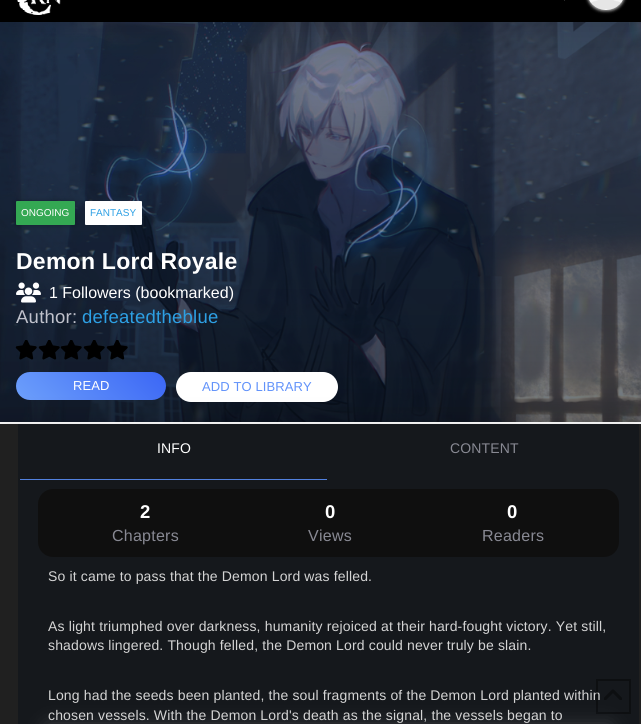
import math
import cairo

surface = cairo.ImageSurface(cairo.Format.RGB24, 641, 724)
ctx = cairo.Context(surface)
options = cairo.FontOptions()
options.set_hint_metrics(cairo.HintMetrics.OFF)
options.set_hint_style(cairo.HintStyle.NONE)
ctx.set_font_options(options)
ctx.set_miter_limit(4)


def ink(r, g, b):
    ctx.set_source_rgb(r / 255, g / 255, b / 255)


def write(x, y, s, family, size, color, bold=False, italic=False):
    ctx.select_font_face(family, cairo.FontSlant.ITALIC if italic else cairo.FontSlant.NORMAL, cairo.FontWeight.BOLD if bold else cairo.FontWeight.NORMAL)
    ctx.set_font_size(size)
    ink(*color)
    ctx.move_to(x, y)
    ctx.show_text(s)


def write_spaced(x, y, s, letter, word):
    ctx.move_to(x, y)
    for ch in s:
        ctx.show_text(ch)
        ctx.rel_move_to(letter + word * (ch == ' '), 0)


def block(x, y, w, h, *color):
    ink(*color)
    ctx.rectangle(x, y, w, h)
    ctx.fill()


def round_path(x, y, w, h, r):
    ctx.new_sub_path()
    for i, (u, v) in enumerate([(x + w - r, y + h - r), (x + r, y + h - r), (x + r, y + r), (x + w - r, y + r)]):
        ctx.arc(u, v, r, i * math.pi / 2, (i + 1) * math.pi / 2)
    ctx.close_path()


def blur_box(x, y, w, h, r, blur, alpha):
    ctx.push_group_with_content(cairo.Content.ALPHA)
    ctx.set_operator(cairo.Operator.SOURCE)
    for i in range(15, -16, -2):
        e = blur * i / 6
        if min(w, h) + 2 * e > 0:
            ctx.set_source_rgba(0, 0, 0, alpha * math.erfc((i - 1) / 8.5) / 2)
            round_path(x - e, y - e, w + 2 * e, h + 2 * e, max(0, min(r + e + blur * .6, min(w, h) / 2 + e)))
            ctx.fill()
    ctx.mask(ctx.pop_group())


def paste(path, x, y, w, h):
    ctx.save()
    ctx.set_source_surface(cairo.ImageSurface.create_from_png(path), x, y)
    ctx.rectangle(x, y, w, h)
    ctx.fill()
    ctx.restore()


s1 = dict(family="Liberation Sans", size=10, color=(255, 255, 255))
s2 = dict(family="Liberation Sans", size=10, color=(45, 160, 228))
s3 = dict(family="Liberation Sans", size=16, color=(255, 255, 255))

ink(255, 255, 255)
ctx.paint()
paste("pic3.png", 0, 22, 641, 400)
ink(0, 0, 0)
blur_box(0, -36, 641, 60, 0, 16, 0.15)
block(0, 0, 641, 22, 0, 0, 0)
paste("pic1.png", 17, 0, 44, 15)
block(564, 0, 1, 1, 38, 38, 38)
ink(255, 255, 255)
blur_box(587, -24, 38, 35, 19, 1.5, 0.7)
paste("pic2.png", 589, 0, 34, 10)
ink(0, 0, 0)
blur_box(16, 201, 59, 24, 1, 3, 0.29)
ink(52, 168, 83)
round_path(16, 201, 59, 24, 1)
ctx.fill()
write(21, 216, "ONGOING", **s1)
round_path(85, 201, 57, 24, 1)
ctx.fill()
write(90, 216, "FANTASY", **s2)
ctx.select_font_face("Liberation Sans", cairo.FontSlant.NORMAL, cairo.FontWeight.BOLD)
ctx.set_font_size(23)
ink(255, 255, 255)
write_spaced(16, 269, "Demon Lord Royale", 0.25, 0)
paste("pic4.png", 16, 282, 25, 21)
write(49, 298, "1 Followers (bookmarked)", **s3)
ctx.set_font_size(18.5)
ink(192, 194, 204)
write_spaced(16, 323, "Author:", 0.25, 0)
ink(45, 160, 228)
write_spaced(82, 323, "defeatedtheblue", 0.25, 0)
paste("pic5.png", 15, 340, 22, 20)
paste("pic6.png", 38, 340, 22, 20)
paste("pic7.png", 60, 340, 22, 20)
paste("pic8.png", 83, 340, 22, 20)
paste("pic9.png", 106, 340, 22, 20)
gradient = cairo.LinearGradient(47, 431, 136, 342)
gradient.add_color_stop_rgba(0, 0.427, 0.627, 0.984, 1)
gradient.add_color_stop_rgba(1, 0.231, 0.4, 0.961, 1)
ctx.set_source(gradient)
round_path(16, 372, 150, 28, 14)
ctx.fill()
ctx.set_font_size(13)
ink(255, 255, 255)
write_spaced(73, 390, "READ", 0.1, 0)
round_path(176, 372, 162, 30, 15)
ctx.fill()
ink(97, 146, 250)
write_spaced(202, 391, "ADD TO LIBRARY", 0.1, 0)
ink(0, 0, 0)
blur_box(0, 426, 641, 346, 0, 16, 0.15)
block(0, 424, 641, 300, 32, 32, 32)
block(18, 424, 621, 300, 21, 24, 28)
block(20, 479, 307, 1, 82, 129, 222)
ctx.set_font_size(14)
ink(255, 255, 255)
write_spaced(157, 453, "INFO", 0.15, 0)
ink(136, 137, 147)
write_spaced(450, 453, "CONTENT", 0.15, 0)
ink(15, 15, 15)
round_path(38, 489, 581, 68, 15)
ctx.fill()
ctx.select_font_face("Liberation Sans", cairo.FontSlant.NORMAL, cairo.FontWeight.BOLD)
ctx.set_font_size(18.5)
ink(255, 255, 255)
write_spaced(140, 518, "2", 0.25, 0)
ctx.select_font_face("Liberation Sans")
ctx.set_font_size(16)
ink(136, 137, 147)
write_spaced(112, 541, "Chapters", 0.25, 0)
ctx.select_font_face("Liberation Sans", cairo.FontSlant.NORMAL, cairo.FontWeight.BOLD)
ctx.set_font_size(18.5)
ink(255, 255, 255)
write_spaced(325, 518, "0", 0.25, 0)
ctx.select_font_face("Liberation Sans")
ctx.set_font_size(16)
ink(136, 137, 147)
write_spaced(308, 541, "Views", 0.25, 0)
ctx.select_font_face("Liberation Sans", cairo.FontSlant.NORMAL, cairo.FontWeight.BOLD)
ctx.set_font_size(18.5)
ink(255, 255, 255)
write_spaced(507, 518, "0", 0.25, 0)
ctx.select_font_face("Liberation Sans")
ctx.set_font_size(16)
ink(136, 137, 147)
write_spaced(482, 541, "Readers", 0.25, 0)
ctx.set_font_size(14)
ink(212, 212, 212)
write_spaced(48, 581, "So it came to pass that the Demon Lord was felled.", 0.15, 0)
write_spaced(48, 631, "As light triumphed over darkness, humanity rejoiced at their hard-fought victory. Yet still,", 0.15, 0)
write_spaced(48, 650, "shadows lingered. Though felled, the Demon Lord could never truly be slain.", 0.15, 0)
ink(255, 255, 255)
blur_box(48, 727, 561, 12, 0, 10, 0.2)
ink(212, 212, 212)
write_spaced(48, 700, "Long had the seeds been planted, the soul fragments of the Demon Lord planted within", 0.15, 0)
write_spaced(48, 720, "chosen vessels. With the Demon Lord's death as the signal, the vessels began to", 0.15, 0)
ctx.rectangle(597, 680, 33, 33)
ctx.set_source_rgba(0, 0, 0, 0.38)
ctx.stroke()
paste("pic10.png", 604, 689, 18, 11)
surface.write_to_png("screenshot.png")
